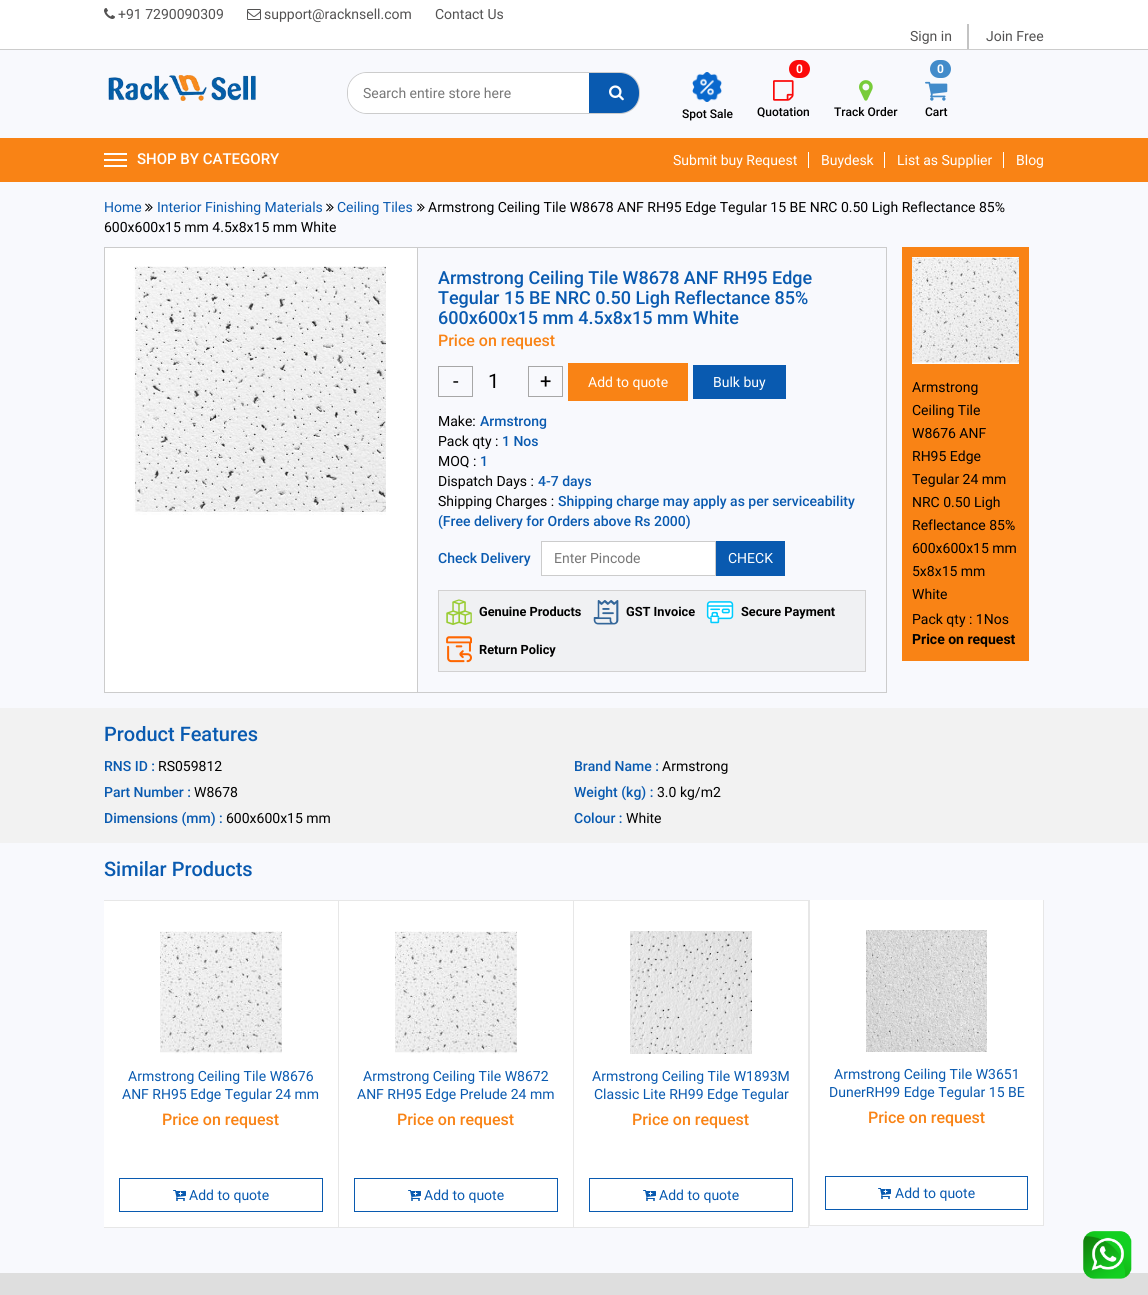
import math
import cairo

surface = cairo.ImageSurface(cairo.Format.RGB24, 1148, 1295)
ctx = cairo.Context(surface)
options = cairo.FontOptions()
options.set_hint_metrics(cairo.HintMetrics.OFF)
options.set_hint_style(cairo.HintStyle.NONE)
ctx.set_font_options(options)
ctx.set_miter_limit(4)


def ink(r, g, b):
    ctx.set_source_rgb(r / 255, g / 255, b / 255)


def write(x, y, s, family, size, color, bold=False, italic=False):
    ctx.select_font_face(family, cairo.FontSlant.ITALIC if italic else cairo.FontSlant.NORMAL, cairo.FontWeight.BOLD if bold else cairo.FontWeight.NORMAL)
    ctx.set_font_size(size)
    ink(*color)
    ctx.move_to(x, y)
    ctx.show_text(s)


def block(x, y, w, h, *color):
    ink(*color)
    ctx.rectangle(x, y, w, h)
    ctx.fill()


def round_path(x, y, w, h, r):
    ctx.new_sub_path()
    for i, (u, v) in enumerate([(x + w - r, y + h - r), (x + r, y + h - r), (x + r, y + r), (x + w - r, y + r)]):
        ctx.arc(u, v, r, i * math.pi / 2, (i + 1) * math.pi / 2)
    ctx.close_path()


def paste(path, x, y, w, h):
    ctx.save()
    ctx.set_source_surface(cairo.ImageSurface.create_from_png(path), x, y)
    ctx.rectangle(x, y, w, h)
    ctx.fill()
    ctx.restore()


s1 = dict(family="Roboto", size=14, color=(83, 82, 82))
s2 = dict(family="Roboto", size=14, color=(119, 119, 119))
s3 = dict(family="Roboto Medium", size=12, color=(0, 0, 0))
s4 = dict(family="Roboto", size=12, color=(255, 255, 255), bold=True)
s5 = dict(family="Roboto Medium", size=15, color=(255, 255, 255))
s6 = dict(family="Roboto", size=14, color=(255, 255, 255))
s7 = dict(family="Roboto", size=14, color=(9, 90, 176))
s8 = dict(family="Roboto", size=14, color=(0, 0, 0))
s9 = dict(family="Roboto Medium", size=18, color=(9, 90, 176))
s10 = dict(family="Roboto Medium", size=16, color=(249, 131, 21))
s11 = dict(family="Roboto", size=20, color=(0, 0, 0))
s12 = dict(family="Roboto Medium", size=14, color=(9, 90, 176))
s13 = dict(family="Roboto", size=12.75, color=(0, 0, 0), bold=True)
s14 = dict(family="Roboto", size=14, color=(0, 0, 0), bold=True)
s15 = dict(family="Roboto Medium", size=20, color=(9, 90, 176))

ink(248, 249, 253)
ctx.paint()
block(0, 0, 1148, 49, 255, 255, 255)
block(0, 49, 1148, 1, 204, 204, 204)
paste("pic1.png", 104, 8, 11, 11)
write(118, 19, "+91 7290090309", **s1)
paste("pic2.png", 247, 9, 14, 11)
write(264, 19, "support@racknsell.com", **s1)
write(435, 19, "Contact Us", **s1)
block(967, 24, 2, 25, 195, 195, 195)
write(910, 41, "Sign in", **s1)
write(986, 41, "Join Free", **s1)
paste("pic3.png", 108, 75, 148, 26)
round_path(347.5, 72.5, 292, 41, 19.5)
ink(204, 204, 204)
ctx.set_line_width(1)
ctx.stroke()
ink(255, 255, 255)
ctx.new_path()
ctx.move_to(367, 73)
ctx.line_to(589, 73)
ctx.line_to(589, 113)
ctx.line_to(367, 113)
ctx.curve_to(356.5, 113, 348, 104.5, 348, 94)
ctx.line_to(348, 92)
ctx.curve_to(348, 81.5, 356.5, 73, 367, 73)
ctx.close_path()
ctx.fill()
write(363, 98, "Search entire store here", **s2)
ink(9, 90, 176)
ctx.new_path()
ctx.move_to(589, 73)
ctx.line_to(620, 73)
ctx.curve_to(630.5, 73, 639, 81.5, 639, 92)
ctx.line_to(639, 94)
ctx.curve_to(639, 104.5, 630.5, 113, 620, 113)
ctx.line_to(589, 113)
ctx.close_path()
ctx.fill()
paste("pic4.png", 609, 85, 15, 16)
paste("pic5.png", 692, 72, 30, 30)
write(682, 118, "Spot Sale", **s3)
ink(251, 10, 10)
round_path(789, 60, 21, 18, 9)
ctx.fill()
write(796, 73, "0", **s4)
paste("pic6.png", 773, 80, 21, 21)
write(757, 116, "Quotation", **s3)
paste("pic7.png", 859, 80, 14, 21)
write(834, 116, "Track Order", **s3)
ink(66, 139, 202)
round_path(930, 60, 21, 18, 9)
ctx.fill()
write(937, 73, "0", **s4)
paste("pic8.png", 925, 81, 23, 20)
write(925, 116, "Cart", **s3)
block(0, 138, 1148, 44, 249, 131, 21)
block(104, 153, 23, 2, 255, 255, 255)
block(104, 159, 23, 2, 255, 255, 255)
block(104, 165, 23, 2, 255, 255, 255)
write(137, 164, "SHOP BY CATEGORY", **s5)
write(673, 165, "Submit buy Request", **s6)
block(808, 152, 1, 16, 255, 255, 255)
write(821, 165, "Buydesk", **s6)
block(884, 152, 1, 16, 255, 255, 255)
write(897, 165, "List as Supplier", **s6)
block(1003, 152, 1, 16, 255, 255, 255)
write(1016, 165, "Blog", **s6)
write(104, 212, "Home", **s7)
paste("pic9.png", 145, 203, 8, 9)
write(157, 212, "Interior Finishing Materials", **s7)
paste("pic9.png", 326, 203, 8, 9)
write(337, 212, "Ceiling Tiles", **s7)
paste("pic9.png", 417, 203, 8, 9)
write(428, 212, "Armstrong Ceiling Tile W8678 ANF RH95 Edge Tegular 15 BE NRC 0.50 Ligh Reflectance 85%", **s8)
write(104, 232, "600x600x15 mm 4.5x8x15 mm White", **s8)
block(105, 248, 312, 444, 255, 255, 255)
block(104, 247, 313, 1, 204, 204, 204)
block(104, 692, 313, 1, 204, 204, 204)
block(104, 247, 1, 446, 204, 204, 204)
paste("pic10.png", 133, 266, 253, 249)
ctx.rectangle(417.5, 247.5, 469, 445)
ctx.stroke()
write(438, 284, "Armstrong Ceiling Tile W8678 ANF RH95 Edge", **s9)
write(438, 304, "Tegular 15 BE NRC 0.50 Ligh Reflectance 85%", **s9)
write(438, 324, "600x600x15 mm 4.5x8x15 mm White", **s9)
write(438, 346, "Price on request", **s10)
ctx.rectangle(438.5, 366.5, 34, 30)
ink(167, 167, 167)
ctx.stroke()
write(453, 388, "-", **s11)
write(488, 388, "1", **s11)
ctx.rectangle(528.5, 366.5, 34, 30)
ink(167, 167, 167)
ctx.stroke()
write(540, 388, "+", **s11)
block(568, 363, 120, 38, 249, 131, 21)
write(588, 387, "Add to quote", **s6)
block(693, 365, 93, 34, 9, 90, 176)
write(713, 387, "Bulk buy", **s6)
write(438, 426, "Make:", **s8)
write(480, 426, "Armstrong", **s12)
write(438, 446, "Pack qty :", **s8)
write(502, 446, "1 Nos", **s12)
write(438, 466, "MOQ :", **s8)
write(480, 466, "1", **s12)
write(438, 486, "Dispatch Days :", **s8)
write(538, 486, "4-7 days", **s12)
write(438, 506, "Shipping Charges :", **s8)
write(558, 506, "Shipping charge may apply as per serviceability", **s12)
write(438, 526, "(Free delivery for Orders above Rs 2000)", **s12)
write(438, 563, "Check Delivery", **s12)
ink(255, 255, 255)
ctx.rectangle(541.5, 541.5, 174, 34)
ctx.fill_preserve()
ink(204, 204, 204)
ctx.stroke()
write(554, 563, "Enter Pincode", **s2)
block(716, 541, 69, 35, 9, 90, 176)
write(728, 563, "CHECK", **s6)
ink(240, 241, 243)
ctx.rectangle(438.5, 590.5, 427, 81)
ctx.fill_preserve()
ink(210, 209, 209)
ctx.stroke()
paste("pic11.png", 446, 599, 26, 26)
write(479, 616, "Genuine Products", **s13)
paste("pic12.png", 593, 600, 26, 25)
write(626, 616, "GST Invoice", **s13)
paste("pic13.png", 706, 601, 28, 23)
write(741, 616, "Secure Payment", **s13)
paste("pic14.png", 446, 636, 26, 27)
write(479, 654, "Return Policy", **s13)
block(902, 247, 127, 414, 249, 131, 21)
paste("pic15.png", 912, 257, 107, 107)
write(912, 392, "Armstrong", **s8)
write(912, 415, "Ceiling Tile", **s8)
write(912, 438, "W8676 ANF", **s8)
write(912, 461, "RH95 Edge", **s8)
write(912, 484, "Tegular 24 mm", **s8)
write(912, 507, "NRC 0.50 Ligh", **s8)
write(912, 530, "Reflectance 85%", **s8)
write(912, 553, "600x600x15 mm", **s8)
write(912, 576, "5x8x15 mm", **s8)
write(912, 599, "White", **s8)
write(912, 624, "Pack qty : 1Nos", **s8)
write(912, 644, "Price on request", **s14)
block(0, 708, 1148, 135, 242, 242, 242)
write(104, 741, "Product Features", **s15)
write(104, 771, "RNS ID :", **s12)
write(158, 771, "RS059812", **s8)
write(574, 771, "Brand Name :", **s12)
write(662, 771, "Armstrong", **s8)
write(104, 797, "Part Number :", **s12)
write(194, 797, "W8678", **s8)
write(574, 797, "Weight (kg) :", **s12)
write(657, 797, "3.0 kg/m2", **s8)
write(104, 823, "Dimensions (mm) :", **s12)
write(226, 823, "600x600x15 mm", **s8)
write(574, 823, "Colour :", **s12)
write(626, 823, "White", **s8)
write(104, 876, "Similar Products", **s15)
block(104, 901, 234, 326, 255, 255, 255)
block(104, 900, 705, 1, 231, 231, 231)
block(338, 900, 1, 328, 231, 231, 231)
block(104, 1227, 235, 1, 231, 231, 231)
paste("pic16.png", 160, 931, 122, 123)
write(128, 1081, "Armstrong Ceiling Tile W8676", **s7)
write(122, 1099, "ANF RH95 Edge Tegular 24 mm", **s7)
write(162, 1125, "Price on request", **s10)
ctx.rectangle(119.5, 1178.5, 203, 33)
ink(9, 90, 176)
ctx.stroke()
paste("pic17.png", 173, 1190, 13, 11)
write(189, 1200, "Add to quote", **s7)
block(339, 901, 234, 326, 255, 255, 255)
block(573, 900, 1, 328, 231, 231, 231)
block(339, 1227, 235, 1, 231, 231, 231)
paste("pic16.png", 395, 931, 122, 123)
write(363, 1081, "Armstrong Ceiling Tile W8672", **s7)
write(357, 1099, "ANF RH95 Edge Prelude 24 mm", **s7)
write(397, 1125, "Price on request", **s10)
ctx.rectangle(354.5, 1178.5, 203, 33)
ink(9, 90, 176)
ctx.stroke()
paste("pic17.png", 408, 1190, 13, 11)
write(424, 1200, "Add to quote", **s7)
block(574, 901, 234, 326, 255, 255, 255)
block(808, 900, 1, 328, 231, 231, 231)
block(574, 1227, 235, 1, 231, 231, 231)
paste("pic18.png", 630, 931, 122, 123)
write(592, 1081, "Armstrong Ceiling Tile W1893M", **s7)
write(594, 1099, "Classic Lite RH99 Edge Tegular", **s7)
write(632, 1125, "Price on request", **s10)
ctx.rectangle(589.5, 1178.5, 203, 33)
ink(9, 90, 176)
ctx.stroke()
paste("pic17.png", 643, 1190, 13, 11)
write(659, 1200, "Add to quote", **s7)
block(810, 900, 233, 325, 255, 255, 255)
block(1043, 900, 1, 326, 231, 231, 231)
block(809, 1225, 235, 1, 231, 231, 231)
block(809, 900, 1, 326, 231, 231, 231)
paste("pic19.png", 866, 930, 121, 122)
write(834, 1079, "Armstrong Ceiling Tile W3651", **s7)
write(829, 1097, "DunerRH99 Edge Tegular 15 BE", **s7)
write(868, 1123, "Price on request", **s10)
ctx.rectangle(825.5, 1176.5, 202, 33)
ink(9, 90, 176)
ctx.stroke()
paste("pic17.png", 878, 1188, 13, 11)
write(895, 1198, "Add to quote", **s7)
block(0, 1273, 1148, 22, 222, 222, 222)
paste("pic20.png", 1083, 1231, 49, 48)
surface.write_to_png("screenshot.png")
